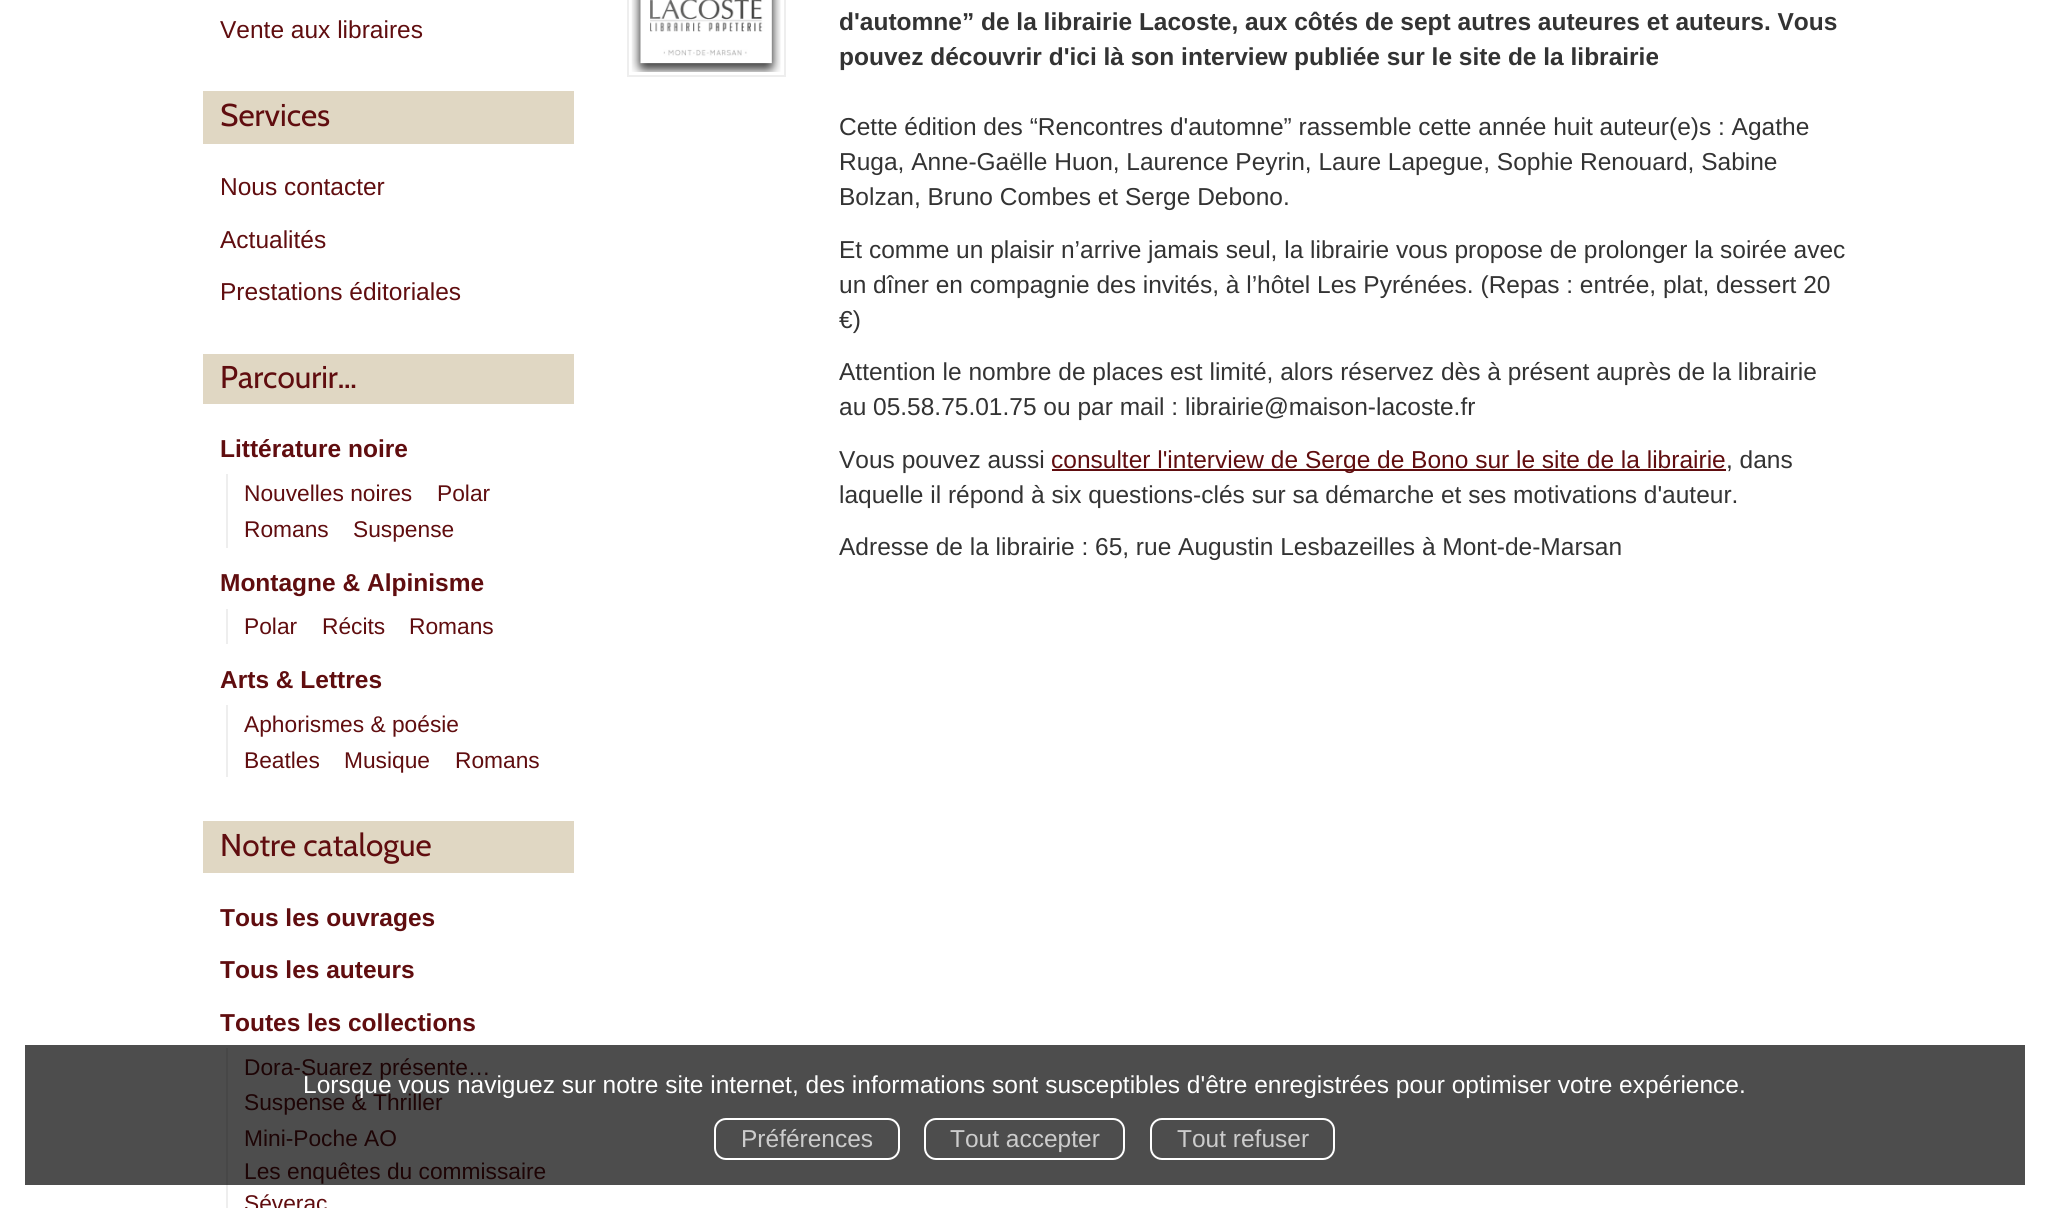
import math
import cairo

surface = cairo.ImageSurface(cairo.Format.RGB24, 2049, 1208)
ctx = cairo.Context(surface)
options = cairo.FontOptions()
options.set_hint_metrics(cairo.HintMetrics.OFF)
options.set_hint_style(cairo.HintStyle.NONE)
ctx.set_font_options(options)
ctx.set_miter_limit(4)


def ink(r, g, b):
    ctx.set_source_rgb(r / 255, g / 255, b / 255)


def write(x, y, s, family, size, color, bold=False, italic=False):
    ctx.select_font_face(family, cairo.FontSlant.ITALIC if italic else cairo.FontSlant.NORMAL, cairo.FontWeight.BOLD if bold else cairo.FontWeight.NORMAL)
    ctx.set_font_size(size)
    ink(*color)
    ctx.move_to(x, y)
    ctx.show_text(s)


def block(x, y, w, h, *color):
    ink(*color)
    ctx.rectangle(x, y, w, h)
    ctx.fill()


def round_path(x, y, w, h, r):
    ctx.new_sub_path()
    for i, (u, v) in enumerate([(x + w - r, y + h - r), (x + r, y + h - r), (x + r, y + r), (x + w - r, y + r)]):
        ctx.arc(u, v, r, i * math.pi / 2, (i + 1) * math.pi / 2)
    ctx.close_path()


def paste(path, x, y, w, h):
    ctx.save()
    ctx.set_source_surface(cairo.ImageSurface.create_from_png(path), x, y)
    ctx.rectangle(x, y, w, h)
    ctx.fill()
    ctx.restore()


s1 = dict(family="Liberation Sans", size=24.5, color=(96, 13, 15))
s2 = dict(family="Cabin", size=31.5, color=(96, 13, 15))
s3 = dict(family="Liberation Sans", size=24.5, color=(96, 13, 15), bold=True)
s4 = dict(family="Liberation Sans", size=22.75, color=(96, 13, 15))
s5 = dict(family="Liberation Sans", size=22.75, color=(29, 4, 5))
s6 = dict(family="Liberation Sans", size=24.5, color=(51, 51, 51), bold=True)
s7 = dict(family="Liberation Sans", size=24.5, color=(51, 51, 51))
s8 = dict(family="Liberation Sans", size=24.5, color=(255, 255, 255))
s9 = dict(family="Liberation Sans", size=24.5, color=(204, 204, 204))

ink(255, 255, 255)
ctx.paint()
block(25, 1045, 2000, 140, 77, 77, 77)
write(220, 38, "Vente aux libraires", **s1)
block(203, 91, 371, 53, 224, 215, 195)
write(220, 126, "Services", **s2)
write(220, 195, "Nous contacter", **s1)
write(220, 248, "Actualités", **s1)
write(220, 300, "Prestations éditoriales", **s1)
block(203, 354, 371, 50, 224, 215, 195)
write(220, 388, "Parcourir…", **s2)
write(220, 457, "Littérature noire", **s3)
block(226, 474, 2, 74, 238, 238, 238)
write(244, 501, "Nouvelles noires", **s4)
write(437, 501, "Polar", **s4)
write(244, 537, "Romans", **s4)
write(353, 537, "Suspense", **s4)
write(220, 591, "Montagne & Alpinisme", **s3)
block(226, 609, 2, 35, 238, 238, 238)
write(244, 634, "Polar", **s4)
write(322, 634, "Récits", **s4)
write(409, 634, "Romans", **s4)
write(220, 688, "Arts & Lettres", **s3)
block(226, 705, 2, 72, 238, 238, 238)
write(244, 732, "Aphorismes & poésie", **s4)
write(244, 768, "Beatles", **s4)
write(344, 768, "Musique", **s4)
write(455, 768, "Romans", **s4)
block(203, 821, 371, 52, 224, 215, 195)
write(220, 856, "Notre catalogue", **s2)
write(220, 926, "Tous les ouvrages", **s3)
write(220, 978, "Tous les auteurs", **s3)
write(220, 1031, "Toutes les collections", **s3)
block(226, 1185, 2, 23, 238, 238, 238)
block(226, 1048, 2, 137, 71, 71, 71)
write(244, 1075, "Dora-Suarez présente…", **s5)
write(244, 1110, "Suspense & Thriller", **s5)
write(244, 1146, "Mini-Poche AO", **s5)
write(244, 1179, "Les enquêtes du commissaire", **s5)
write(244, 1211, "Séverac", **s4)
ctx.rectangle(628, -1, 157, 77)
ink(238, 238, 238)
ctx.stroke()
paste("pic1.png", 631, 0, 150, 72)
write(839, 30, "d'automne” de la librairie Lacoste, aux côtés de sept autres auteures et auteurs. Vous", **s6)
write(839, 65, "pouvez découvrir d'ici là son interview publiée sur le site de la librairie", **s6)
write(839, 135, "Cette édition des “Rencontres d'automne” rassemble cette année huit auteur(e)s : Agathe", **s7)
write(839, 170, "Ruga, Anne-Gaëlle Huon, Laurence Peyrin, Laure Lapegue, Sophie Renouard, Sabine", **s7)
write(839, 205, "Bolzan, Bruno Combes et Serge Debono.", **s7)
write(839, 258, "Et comme un plaisir n’arrive jamais seul, la librairie vous propose de prolonger la soirée avec", **s7)
write(839, 293, "un dîner en compagnie des invités, à l’hôtel Les Pyrénées. (Repas : entrée, plat, dessert 20", **s7)
write(839, 328, "€)", **s7)
write(839, 380, "Attention le nombre de places est limité, alors réservez dès à présent auprès de la librairie", **s7)
write(839, 415, "au 05.58.75.01.75 ou par mail : librairie@maison-lacoste.fr", **s7)
write(839, 468, "Vous pouvez aussi", **s7)
block(1052, 469, 674, 2, 96, 13, 15)
write(1051, 468, "consulter l'interview de Serge de Bono sur le site de la librairie", **s1)
write(1726, 468, ", dans", **s7)
write(839, 503, "laquelle il répond à six questions-clés sur sa démarche et ses motivations d'auteur.", **s7)
write(839, 555, "Adresse de la librairie : 65, rue Augustin Lesbazeilles à Mont-de-Marsan", **s7)
write(303, 1093, "Lorsque vous naviguez sur notre site internet, des informations sont susceptibles d'être enregistrées pour optimiser votre expérience.", **s8)
round_path(715, 1119, 184, 40, 11)
ctx.stroke()
write(741, 1147, "Préférences", **s9)
round_path(925, 1119, 199, 40, 11)
ink(255, 255, 255)
ctx.stroke()
write(950, 1147, "Tout accepter", **s9)
round_path(1151, 1119, 183, 40, 11)
ink(255, 255, 255)
ctx.stroke()
write(1177, 1147, "Tout refuser", **s9)
surface.write_to_png("screenshot.png")
